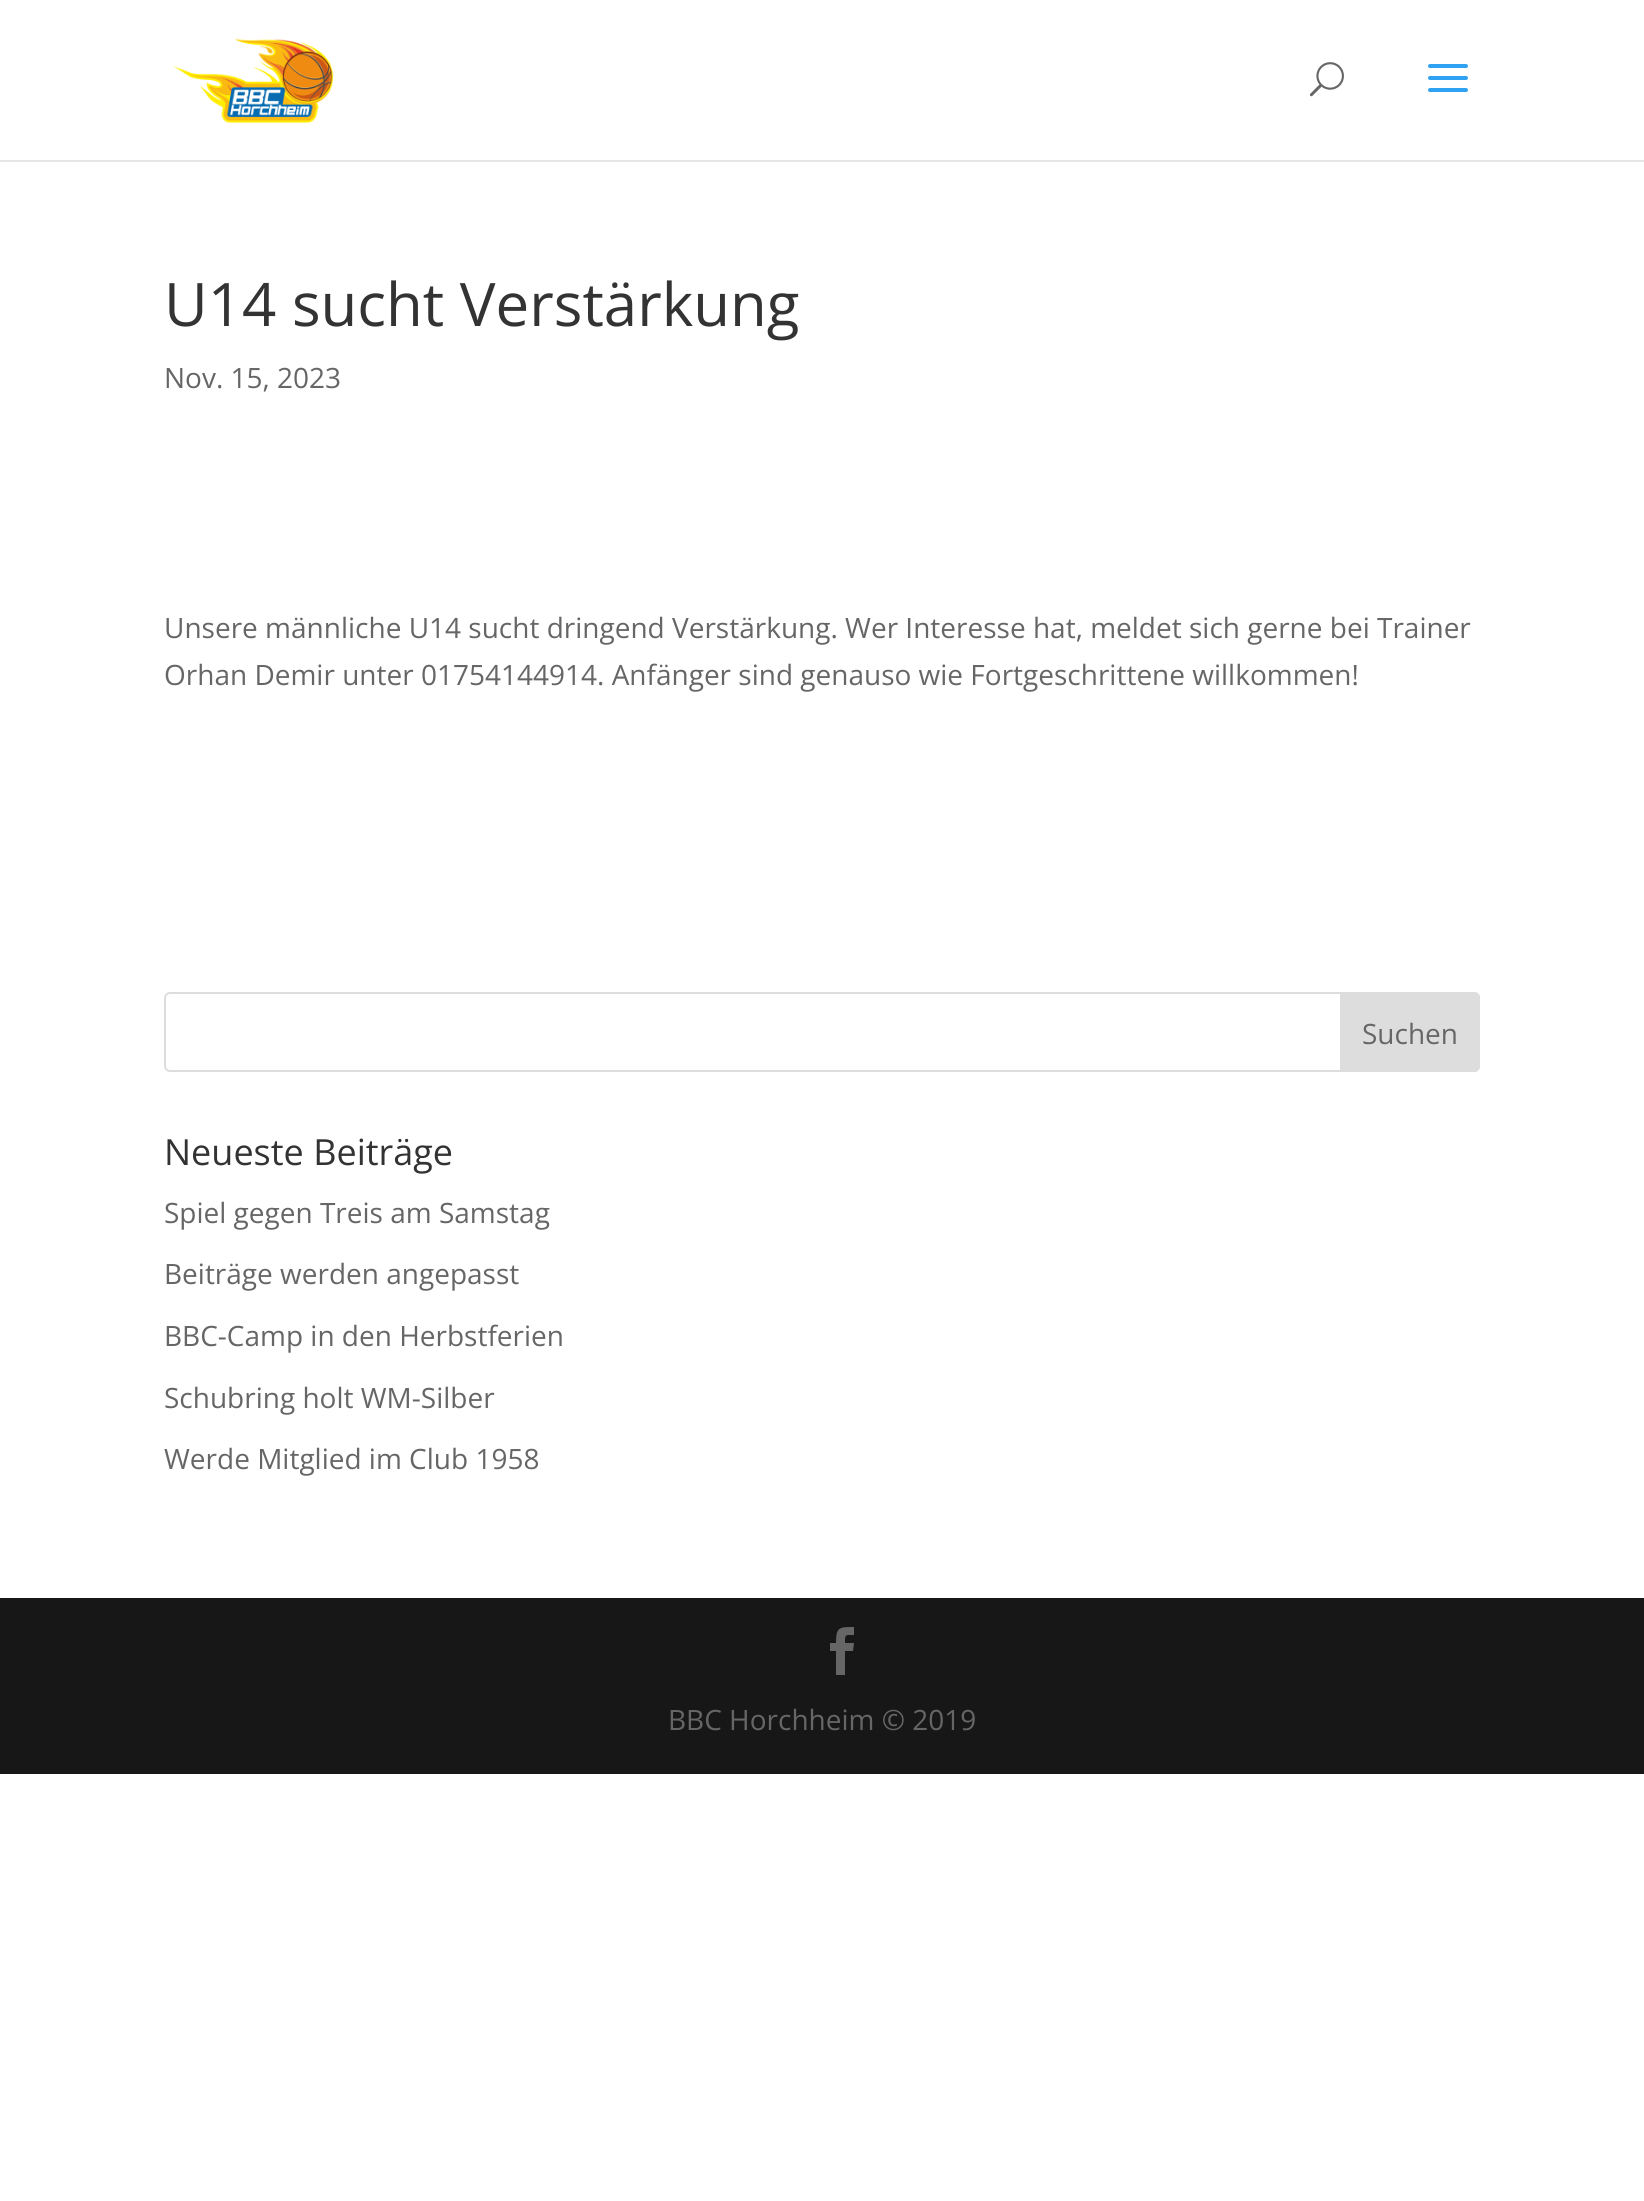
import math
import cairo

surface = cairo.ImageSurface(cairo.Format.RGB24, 1644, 2201)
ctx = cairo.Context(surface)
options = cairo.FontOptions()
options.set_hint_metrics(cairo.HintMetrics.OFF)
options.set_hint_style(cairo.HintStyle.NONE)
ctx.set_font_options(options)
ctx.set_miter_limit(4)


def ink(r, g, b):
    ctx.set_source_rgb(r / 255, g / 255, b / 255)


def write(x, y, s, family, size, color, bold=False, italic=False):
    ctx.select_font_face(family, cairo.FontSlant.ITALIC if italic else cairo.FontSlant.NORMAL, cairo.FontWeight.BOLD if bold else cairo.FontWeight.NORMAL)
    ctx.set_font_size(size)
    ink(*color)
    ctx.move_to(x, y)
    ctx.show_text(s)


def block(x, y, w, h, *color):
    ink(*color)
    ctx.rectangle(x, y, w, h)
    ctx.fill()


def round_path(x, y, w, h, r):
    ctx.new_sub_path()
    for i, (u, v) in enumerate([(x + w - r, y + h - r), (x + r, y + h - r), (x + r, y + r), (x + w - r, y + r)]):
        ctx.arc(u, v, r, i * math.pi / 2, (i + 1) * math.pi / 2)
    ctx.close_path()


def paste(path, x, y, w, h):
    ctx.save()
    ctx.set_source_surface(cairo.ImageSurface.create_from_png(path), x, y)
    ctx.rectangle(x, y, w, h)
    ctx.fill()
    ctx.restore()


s1 = dict(family="Open Sans", size=60, color=(51, 51, 51))
s2 = dict(family="Open Sans", size=28, color=(102, 102, 102))
s3 = dict(family="Open Sans", size=36, color=(51, 51, 51))

ink(255, 255, 255)
ctx.paint()
block(0, 160, 1644, 2, 230, 230, 230)
paste("pic1.png", 173, 38, 161, 86)
paste("pic2.png", 1309, 62, 35, 35)
paste("pic3.png", 1428, 64, 40, 28)
write(164, 326, "U14 sucht Verstärkung", **s1)
write(164, 388, "Nov. 15, 2023", **s2)
write(164, 638, "Unsere männliche U14 sucht dringend Verstärkung. Wer Interesse hat, meldet sich gerne bei Trainer", **s2)
write(164, 685, "Orhan Demir unter 01754144914. Anfänger sind genauso wie Fortgeschrittene willkommen!", **s2)
round_path(165, 993, 1314, 78, 5)
ink(221, 221, 221)
ctx.stroke()
ctx.new_path()
ctx.move_to(1341, 993)
ctx.line_to(1474, 993)
ctx.curve_to(1477, 993, 1479, 995, 1479, 998)
ctx.line_to(1479, 1066)
ctx.curve_to(1479, 1069, 1477, 1071, 1474, 1071)
ctx.line_to(1341, 1071)
ctx.close_path()
ctx.fill_preserve()
ctx.stroke()
write(1362, 1044, "Suchen", **s2)
write(164, 1165, "Neueste Beiträge", **s3)
write(164, 1223, "Spiel gegen Treis am Samstag", **s2)
write(164, 1284, "Beiträge werden angepasst", **s2)
write(164, 1346, "BBC-Camp in den Herbstferien", **s2)
write(164, 1408, "Schubring holt WM-Silber", **s2)
write(164, 1469, "Werde Mitglied im Club 1958", **s2)
block(0, 1598, 1644, 176, 23, 23, 23)
ink(102, 102, 102)
ctx.new_path()
ctx.move_to(836, 1675)
ctx.line_to(845, 1675)
ctx.line_to(845, 1651)
ctx.line_to(853, 1651)
ctx.line_to(854, 1643)
ctx.line_to(845, 1643)
ctx.curve_to(845, 1634, 845, 1635, 854, 1635)
ctx.line_to(854, 1627)
ctx.curve_to(839, 1627, 836, 1627, 836, 1643)
ctx.line_to(830, 1643)
ctx.line_to(830, 1651)
ctx.line_to(836, 1651)
ctx.close_path()
ctx.fill()
write(668, 1730, "BBC Horchheim © 2019", **s2)
surface.write_to_png("screenshot.png")
